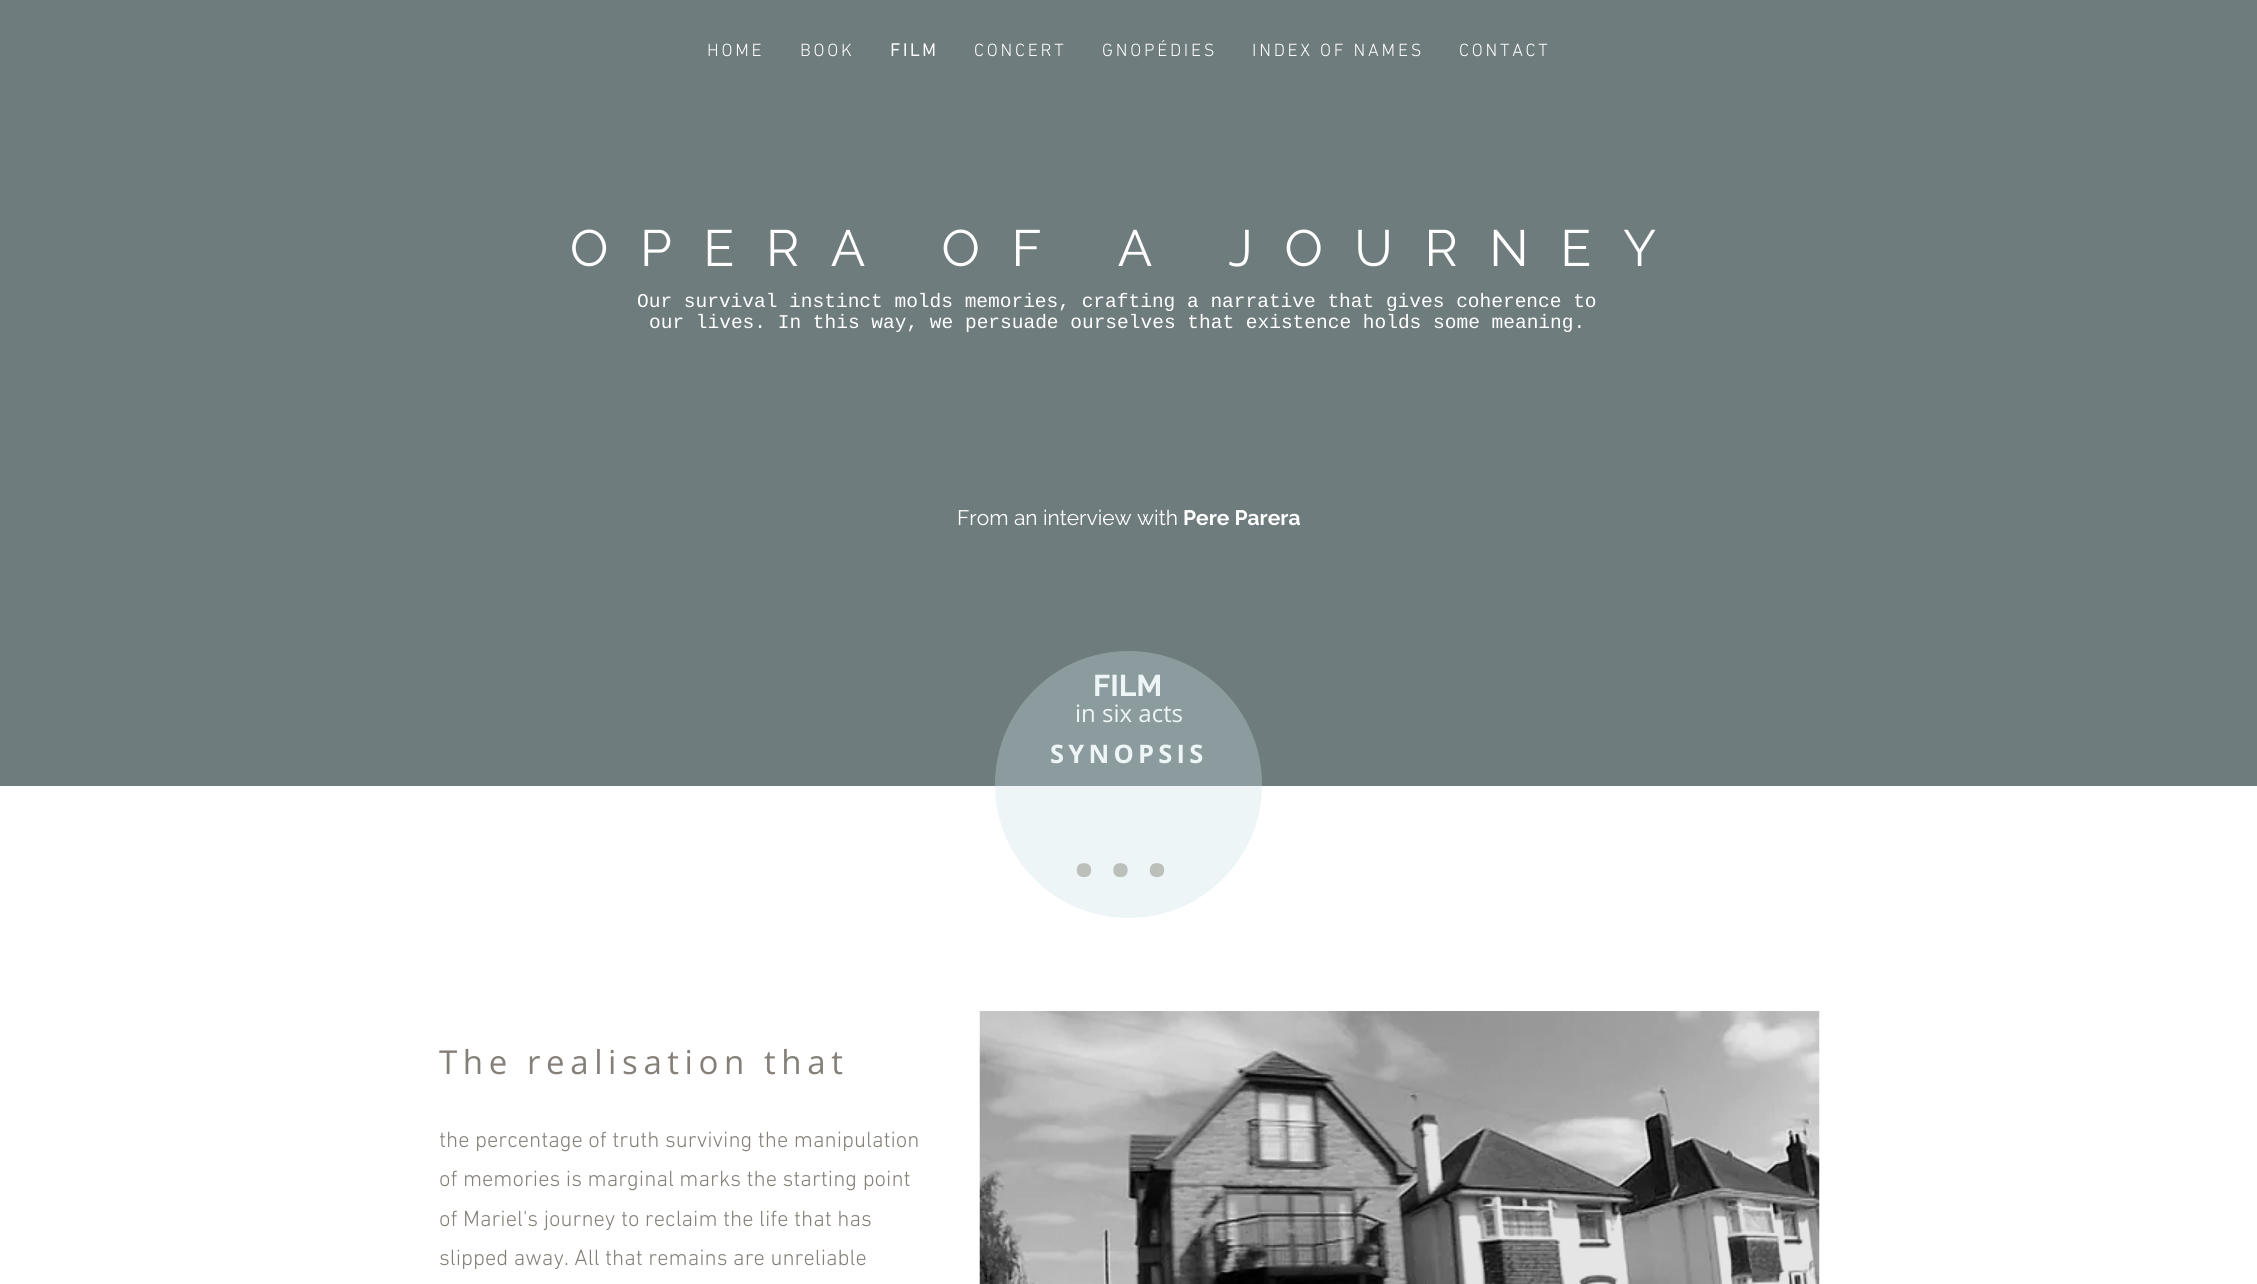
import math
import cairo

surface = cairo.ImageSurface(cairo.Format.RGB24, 2257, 1284)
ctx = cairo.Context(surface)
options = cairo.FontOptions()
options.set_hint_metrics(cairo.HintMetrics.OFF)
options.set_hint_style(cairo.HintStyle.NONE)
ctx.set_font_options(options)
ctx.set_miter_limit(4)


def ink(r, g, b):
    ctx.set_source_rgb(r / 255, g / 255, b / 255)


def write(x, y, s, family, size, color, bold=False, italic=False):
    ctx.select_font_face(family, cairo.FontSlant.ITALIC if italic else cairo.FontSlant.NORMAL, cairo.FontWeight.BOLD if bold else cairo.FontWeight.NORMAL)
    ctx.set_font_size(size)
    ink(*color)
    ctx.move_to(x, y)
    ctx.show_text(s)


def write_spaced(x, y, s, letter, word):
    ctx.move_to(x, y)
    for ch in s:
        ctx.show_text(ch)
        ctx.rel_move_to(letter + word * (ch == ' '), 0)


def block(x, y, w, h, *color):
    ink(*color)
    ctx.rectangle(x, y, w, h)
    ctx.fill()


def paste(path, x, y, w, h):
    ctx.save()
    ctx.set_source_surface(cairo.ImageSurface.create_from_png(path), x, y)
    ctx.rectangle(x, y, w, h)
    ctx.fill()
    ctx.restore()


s1 = dict(family="Liberation Mono", size=19.5, color=(255, 255, 255))
s2 = dict(family="Raleway", size=21, color=(255, 255, 255))
s3 = dict(family="Raleway", size=21, color=(255, 255, 255), bold=True)
s4 = dict(family="Raleway", size=30, color=(255, 255, 255), bold=True)
s5 = dict(family="Open Sans", size=24, color=(255, 255, 255))
s6 = dict(family="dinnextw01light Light", size=22.5, color=(132, 128, 121))

ink(111, 124, 126)
ctx.paint()
ctx.select_font_face("dinnextw01light Light")
ctx.set_font_size(18)
ink(255, 255, 255)
write_spaced(707, 56, "HOME", 2.75, 0)
write_spaced(800, 56, "BOOK", 2.75, 0)
ctx.select_font_face("dinnextw01light", cairo.FontSlant.NORMAL, cairo.FontWeight.BOLD)
write_spaced(890, 56, "FILM", 2.75, 0)
ctx.select_font_face("dinnextw01light Light")
write_spaced(974, 56, "CONCERT", 2.75, 0)
write_spaced(1102, 56, "GNOPÉDIES", 2.75, 0)
write_spaced(1252, 56, "INDEX OF NAMES", 2.75, 0)
write_spaced(1459, 56, "CONTACT", 2.75, 0)
ctx.select_font_face("Raleway")
ctx.set_font_size(51)
write_spaced(570, 266, "OPERA OF A JOURNEY", 31.6, 0)
write(637, 307, "Our survival instinct molds memories, crafting a narrative that gives coherence to", **s1)
write(649, 328, "our lives. In this way, we persuade ourselves that existence holds some meaning.", **s1)
write(957, 525, "From an interview with", **s2)
write(1183, 525, "Pere Parera", **s3)
write(1093, 696, "FILM", **s4)
write(1075, 722, "in six acts", **s5)
ctx.select_font_face("Open Sans", cairo.FontSlant.NORMAL, cairo.FontWeight.BOLD)
ctx.set_font_size(25.5)
write_spaced(1050, 763, "SYNOPSIS", 4.25, 0)
block(0, 786, 2257, 498, 255, 255, 255)
ctx.set_font_size(84)
ink(181, 177, 169)
write_spaced(1072, 876, "...", 12.5, 0)
ctx.set_source_rgba(0.788, 0.867, 0.882, 0.32)
ctx.new_path()
ctx.arc(1128.5, 784.5, 133.5, 0, 2 * math.pi)
ctx.fill()
ctx.select_font_face("Open Sans")
ctx.set_font_size(33)
ink(132, 128, 121)
write_spaced(439, 1074, "The realisation that", 5.6, 0)
paste("pic1.png", 979, 1011, 841, 273)
write(439, 1147, "the percentage of truth surviving the manipulation", **s6)
write(439, 1186, "of memories is marginal marks the starting point", **s6)
write(439, 1226, "of Mariel's journey to reclaim the life that has", **s6)
write(439, 1265, "slipped away. All that remains are unreliable", **s6)
surface.write_to_png("screenshot.png")
